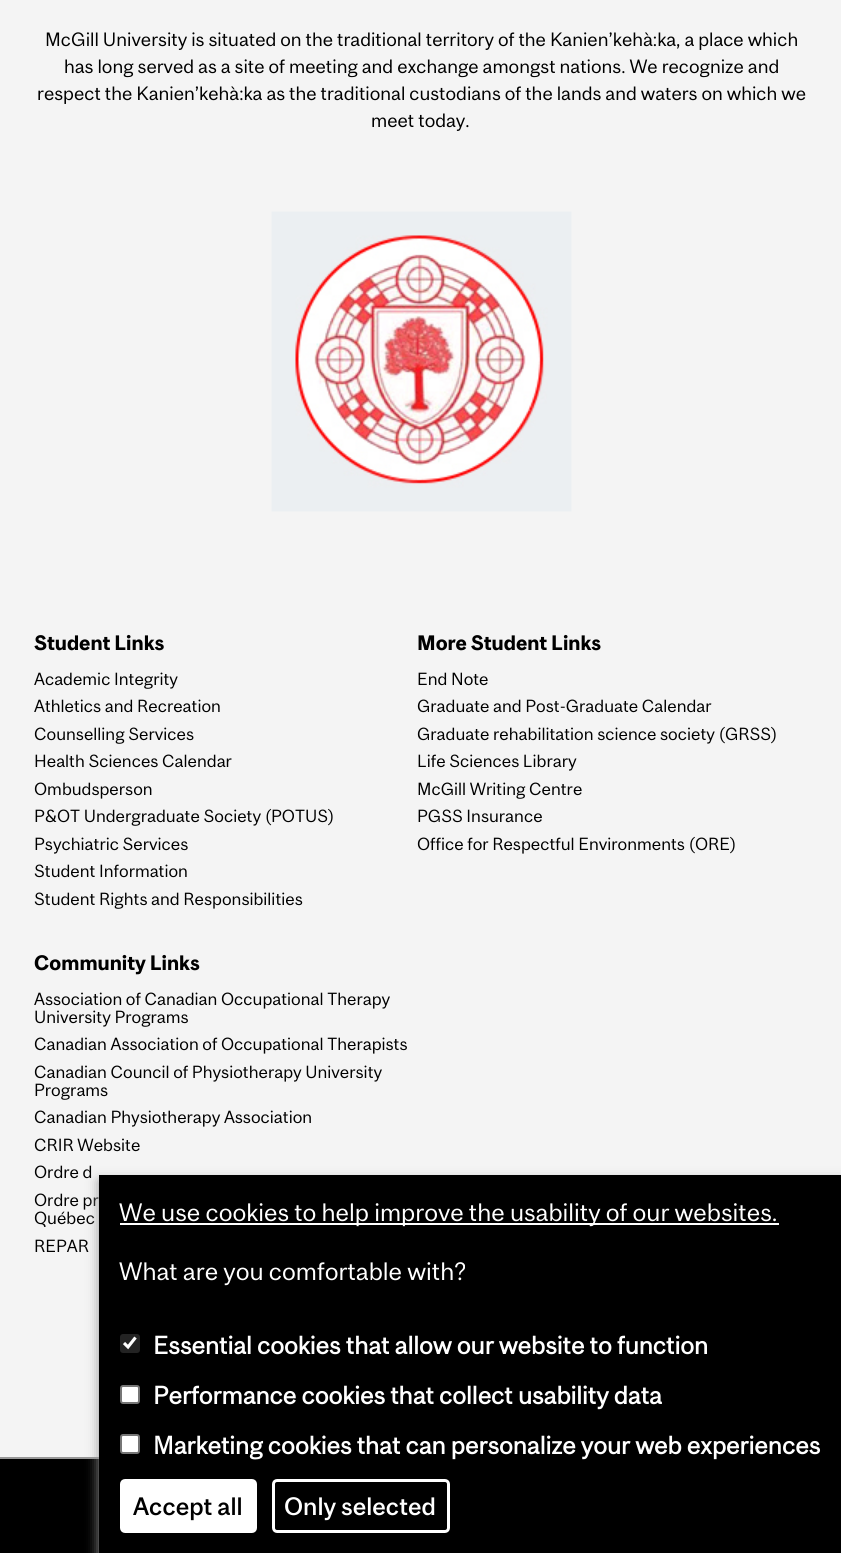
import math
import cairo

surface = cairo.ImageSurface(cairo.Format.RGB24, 841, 1553)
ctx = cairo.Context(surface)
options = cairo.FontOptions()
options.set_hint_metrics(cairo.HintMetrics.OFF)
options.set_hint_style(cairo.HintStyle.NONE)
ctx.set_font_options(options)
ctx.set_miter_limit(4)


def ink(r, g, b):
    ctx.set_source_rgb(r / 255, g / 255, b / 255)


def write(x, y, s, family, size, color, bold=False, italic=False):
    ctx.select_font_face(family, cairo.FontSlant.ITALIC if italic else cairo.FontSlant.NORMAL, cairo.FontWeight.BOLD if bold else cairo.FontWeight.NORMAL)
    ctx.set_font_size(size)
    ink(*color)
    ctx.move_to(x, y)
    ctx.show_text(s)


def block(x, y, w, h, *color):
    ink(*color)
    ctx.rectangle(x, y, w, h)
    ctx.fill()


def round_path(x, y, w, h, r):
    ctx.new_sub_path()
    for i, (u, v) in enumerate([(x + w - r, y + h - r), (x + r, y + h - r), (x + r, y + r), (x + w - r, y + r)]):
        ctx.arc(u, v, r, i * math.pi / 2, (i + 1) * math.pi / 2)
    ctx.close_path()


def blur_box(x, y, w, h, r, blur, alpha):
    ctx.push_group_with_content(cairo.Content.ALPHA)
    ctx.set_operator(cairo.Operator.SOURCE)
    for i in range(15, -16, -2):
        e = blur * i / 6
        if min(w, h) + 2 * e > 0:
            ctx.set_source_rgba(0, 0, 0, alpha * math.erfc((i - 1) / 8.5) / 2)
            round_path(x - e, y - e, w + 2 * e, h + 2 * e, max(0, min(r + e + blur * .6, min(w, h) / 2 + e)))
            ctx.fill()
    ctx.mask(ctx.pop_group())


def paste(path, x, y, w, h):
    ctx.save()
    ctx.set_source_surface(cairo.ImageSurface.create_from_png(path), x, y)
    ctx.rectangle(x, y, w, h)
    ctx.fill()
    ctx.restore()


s1 = dict(family="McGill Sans", size=18, color=(0, 0, 0))
s2 = dict(family="McGill Sans", size=19.5, color=(0, 0, 0), bold=True)
s3 = dict(family="McGill Sans", size=16.4, color=(0, 0, 0))
s4 = dict(family="McGill Sans", size=23.5, color=(255, 255, 255))
s5 = dict(family="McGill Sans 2", size=23.5, color=(255, 255, 255), bold=True)
s6 = dict(family="McGill Sans Medium", size=23.5, color=(0, 0, 0))
s7 = dict(family="McGill Sans Medium", size=23.5, color=(255, 255, 255))

ink(244, 244, 244)
ctx.paint()
write(45, 46, "McGill University is situated on the traditional territory of the Kanien’kehà:ka, a place which", **s1)
write(64, 73, "has long served as a site of meeting and exchange amongst nations. We recognize and", **s1)
write(37, 100, "respect the Kanien’kehà:ka as the traditional custodians of the lands and waters on which we", **s1)
write(371, 127, "meet today.", **s1)
paste("pic1.png", 271, 211, 301, 301)
write(34, 650, "Student Links", **s2)
write(34, 685, "Academic Integrity", **s3)
write(34, 712, "Athletics and Recreation", **s3)
write(34, 740, "Counselling Services", **s3)
write(34, 767, "Health Sciences Calendar", **s3)
write(34, 795, "Ombudsperson", **s3)
write(34, 822, "P&OT Undergraduate Society (POTUS)", **s3)
write(34, 850, "Psychiatric Services", **s3)
write(34, 877, "Student Information", **s3)
write(34, 905, "Student Rights and Responsibilities", **s3)
write(417, 650, "More Student Links", **s2)
write(417, 685, "End Note", **s3)
write(417, 712, "Graduate and Post-Graduate Calendar", **s3)
write(417, 740, "Graduate rehabilitation science society (GRSS)", **s3)
write(417, 767, "Life Sciences Library", **s3)
write(417, 795, "McGill Writing Centre", **s3)
write(417, 822, "PGSS Insurance", **s3)
write(417, 850, "Office for Respectful Environments (ORE)", **s3)
write(34, 970, "Community Links", **s2)
write(34, 1005, "Association of Canadian Occupational Therapy", **s3)
write(34, 1023, "University Programs", **s3)
write(34, 1050, "Canadian Association of Occupational Therapists", **s3)
write(34, 1078, "Canadian Council of Physiotherapy University", **s3)
write(34, 1096, "Programs", **s3)
write(34, 1123, "Canadian Physiotherapy Association", **s3)
write(34, 1151, "CRIR Website", **s3)
write(34, 1178, "Ordre d", **s3)
write(34, 1206, "Ordre pr", **s3)
write(34, 1224, "Québec", **s3)
write(34, 1252, "REPAR", **s3)
block(0, 1459, 99, 94, 0, 0, 0)
block(0, 1457, 99, 2, 151, 151, 151)
ink(151, 151, 153)
blur_box(99, 1181, 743, 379, 0, 6, 1)
block(99, 1175, 742, 378, 0, 0, 0)
block(120, 1223, 659, 2, 255, 255, 255)
write(119, 1221, "We use cookies to help improve the usability of our websites.", **s4)
write(119, 1280, "What are you comfortable with?", **s4)
ink(35, 35, 35)
round_path(120, 1334, 20, 19, 3)
ctx.fill()
ctx.new_path()
ctx.move_to(124, 1343)
ctx.line_to(128, 1347)
ctx.line_to(135.5, 1337.5)
ink(255, 255, 255)
ctx.set_line_width(3.1)
ctx.stroke()
write(153, 1354, "Essential cookies that allow our website to function", **s5)
round_path(121, 1386, 18, 17, 2)
ctx.fill_preserve()
ink(118, 118, 118)
ctx.set_line_width(2)
ctx.stroke()
write(153, 1404, "Performance cookies that collect usability data", **s5)
round_path(121, 1435, 18, 18, 2)
ctx.fill_preserve()
ink(118, 118, 118)
ctx.stroke()
write(153, 1454, "Marketing cookies that can personalize your web experiences", **s5)
round_path(121.5, 1480.5, 134, 51, 3.5)
ctx.fill_preserve()
ctx.set_line_width(3)
ctx.stroke()
write(133, 1515, "Accept all", **s6)
round_path(273.5, 1480.5, 175, 51, 3.5)
ink(255, 255, 255)
ctx.stroke()
write(284, 1515, "Only selected", **s7)
surface.write_to_png("screenshot.png")
